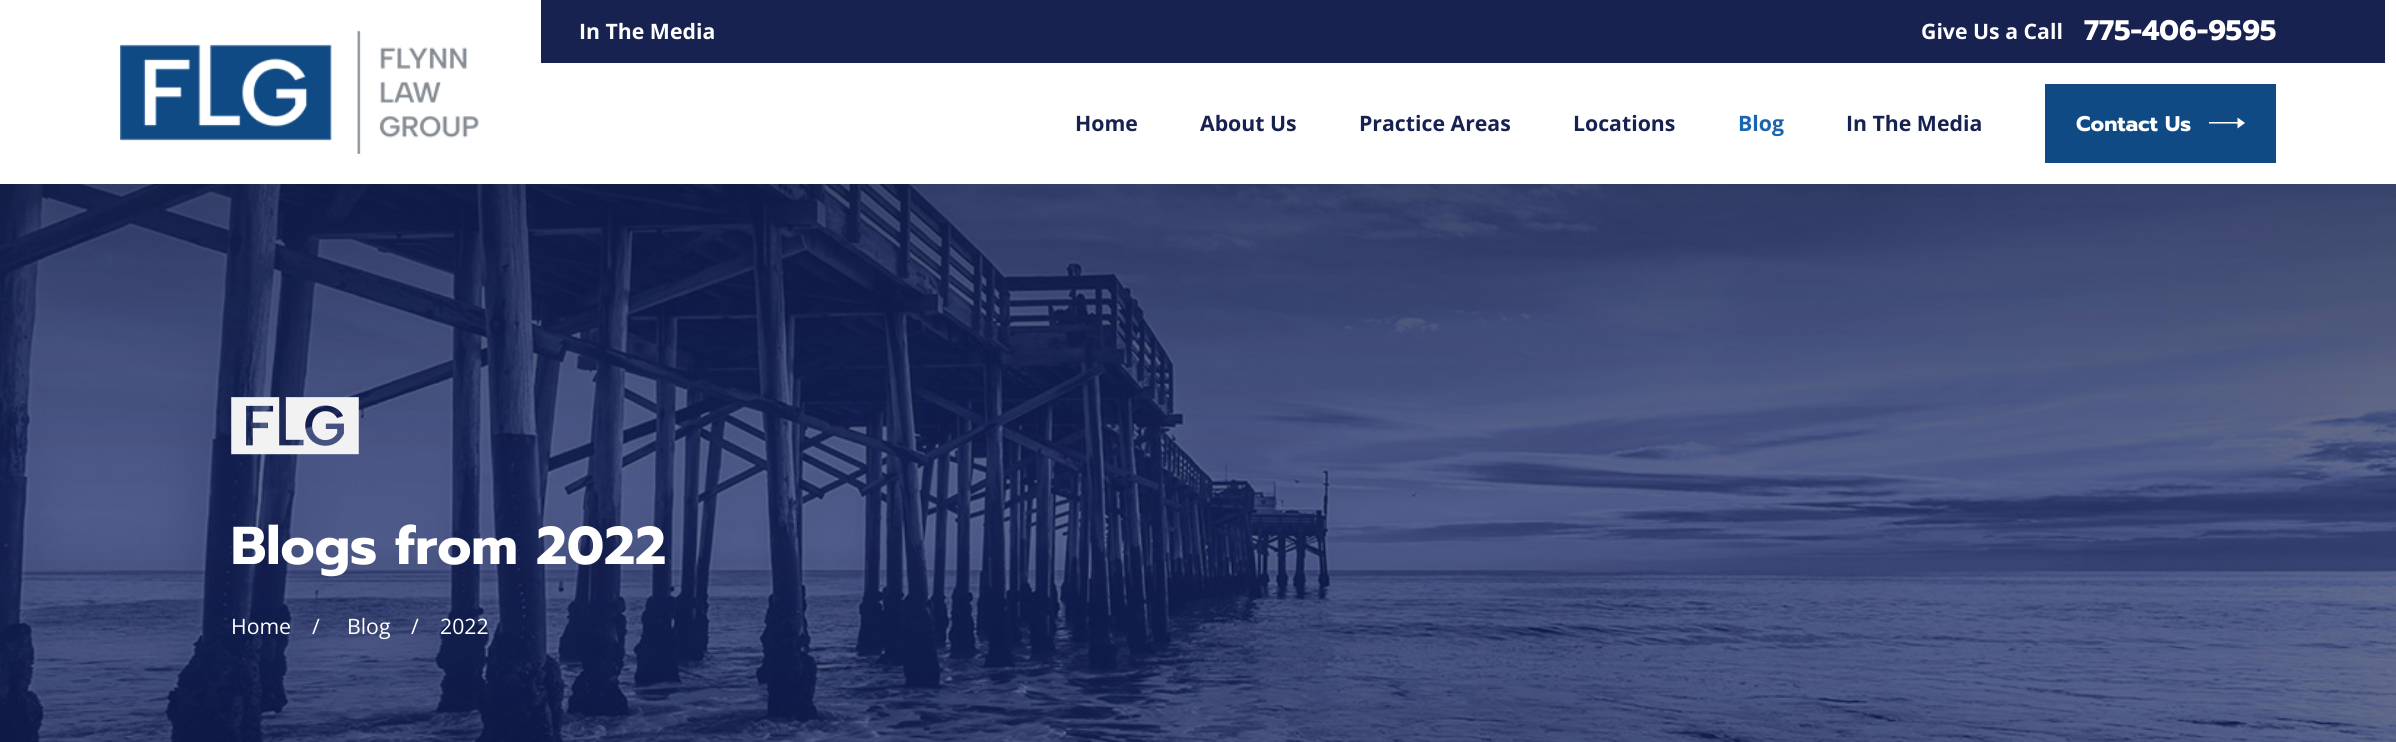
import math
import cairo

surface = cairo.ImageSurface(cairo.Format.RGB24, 2396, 742)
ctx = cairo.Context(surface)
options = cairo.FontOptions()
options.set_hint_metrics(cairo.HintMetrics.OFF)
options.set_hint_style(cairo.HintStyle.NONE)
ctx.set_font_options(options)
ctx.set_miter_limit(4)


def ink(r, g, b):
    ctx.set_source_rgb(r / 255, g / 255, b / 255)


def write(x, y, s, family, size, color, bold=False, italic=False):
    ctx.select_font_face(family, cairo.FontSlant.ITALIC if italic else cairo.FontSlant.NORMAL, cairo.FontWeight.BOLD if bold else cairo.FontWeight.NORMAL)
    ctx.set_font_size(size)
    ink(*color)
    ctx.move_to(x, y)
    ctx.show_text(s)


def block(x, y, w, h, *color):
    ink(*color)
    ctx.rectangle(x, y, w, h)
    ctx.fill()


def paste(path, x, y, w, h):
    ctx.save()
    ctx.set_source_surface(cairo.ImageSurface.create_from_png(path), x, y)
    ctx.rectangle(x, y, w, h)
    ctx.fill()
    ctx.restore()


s1 = dict(family="Open Sans", size=21.25, color=(255, 255, 255), bold=True)
s2 = dict(family="Prompt", size=28.25, color=(255, 255, 255), bold=True)
s3 = dict(family="Open Sans", size=21.25, color=(23, 34, 81), bold=True)
s4 = dict(family="Open Sans", size=21.25, color=(26, 101, 175), bold=True)
s5 = dict(family="Prompt", size=21.25, color=(255, 255, 255), bold=True)
s6 = dict(family="Prompt", size=53.25, color=(255, 255, 255), bold=True)
s7 = dict(family="Open Sans", size=21.25, color=(255, 255, 255))

ink(255, 255, 255)
ctx.paint()
paste("pic1.png", 120, 31, 359, 123)
block(541, 0, 1844, 63, 23, 34, 81)
write(579, 39, "In The Media", **s1)
write(1921, 39, "Give Us a Call", **s1)
write(2084, 40, "775-406-9595", **s2)
write(1075, 131, "Home", **s3)
write(1200, 131, "About Us", **s3)
write(1359, 131, "Practice Areas", **s3)
write(1573, 131, "Locations", **s3)
write(1738, 131, "Blog", **s4)
write(1846, 131, "In The Media", **s3)
block(2045, 84, 231, 79, 16, 74, 132)
write(2076, 131, "Contact Us", **s5)
ctx.new_path()
ctx.move_to(2237.5, 117.5)
ctx.line_to(2237.5, 122)
ctx.line_to(2209, 122)
ctx.line_to(2209, 123.5)
ctx.line_to(2237.5, 123.5)
ctx.line_to(2237.5, 128.5)
ctx.line_to(2245, 123)
ctx.close_path()
ctx.fill()
paste("pic2.png", 0, 184, 2396, 558)
paste("pic3.png", 231, 397, 128, 58)
write(231, 564, "Blogs from 2022", **s6)
write(231, 634, "Home", **s7)
write(312, 634, "/", **s7)
write(347, 634, "Blog", **s7)
write(411, 634, "/", **s7)
write(440, 634, "2022", **s7)
surface.write_to_png("screenshot.png")
